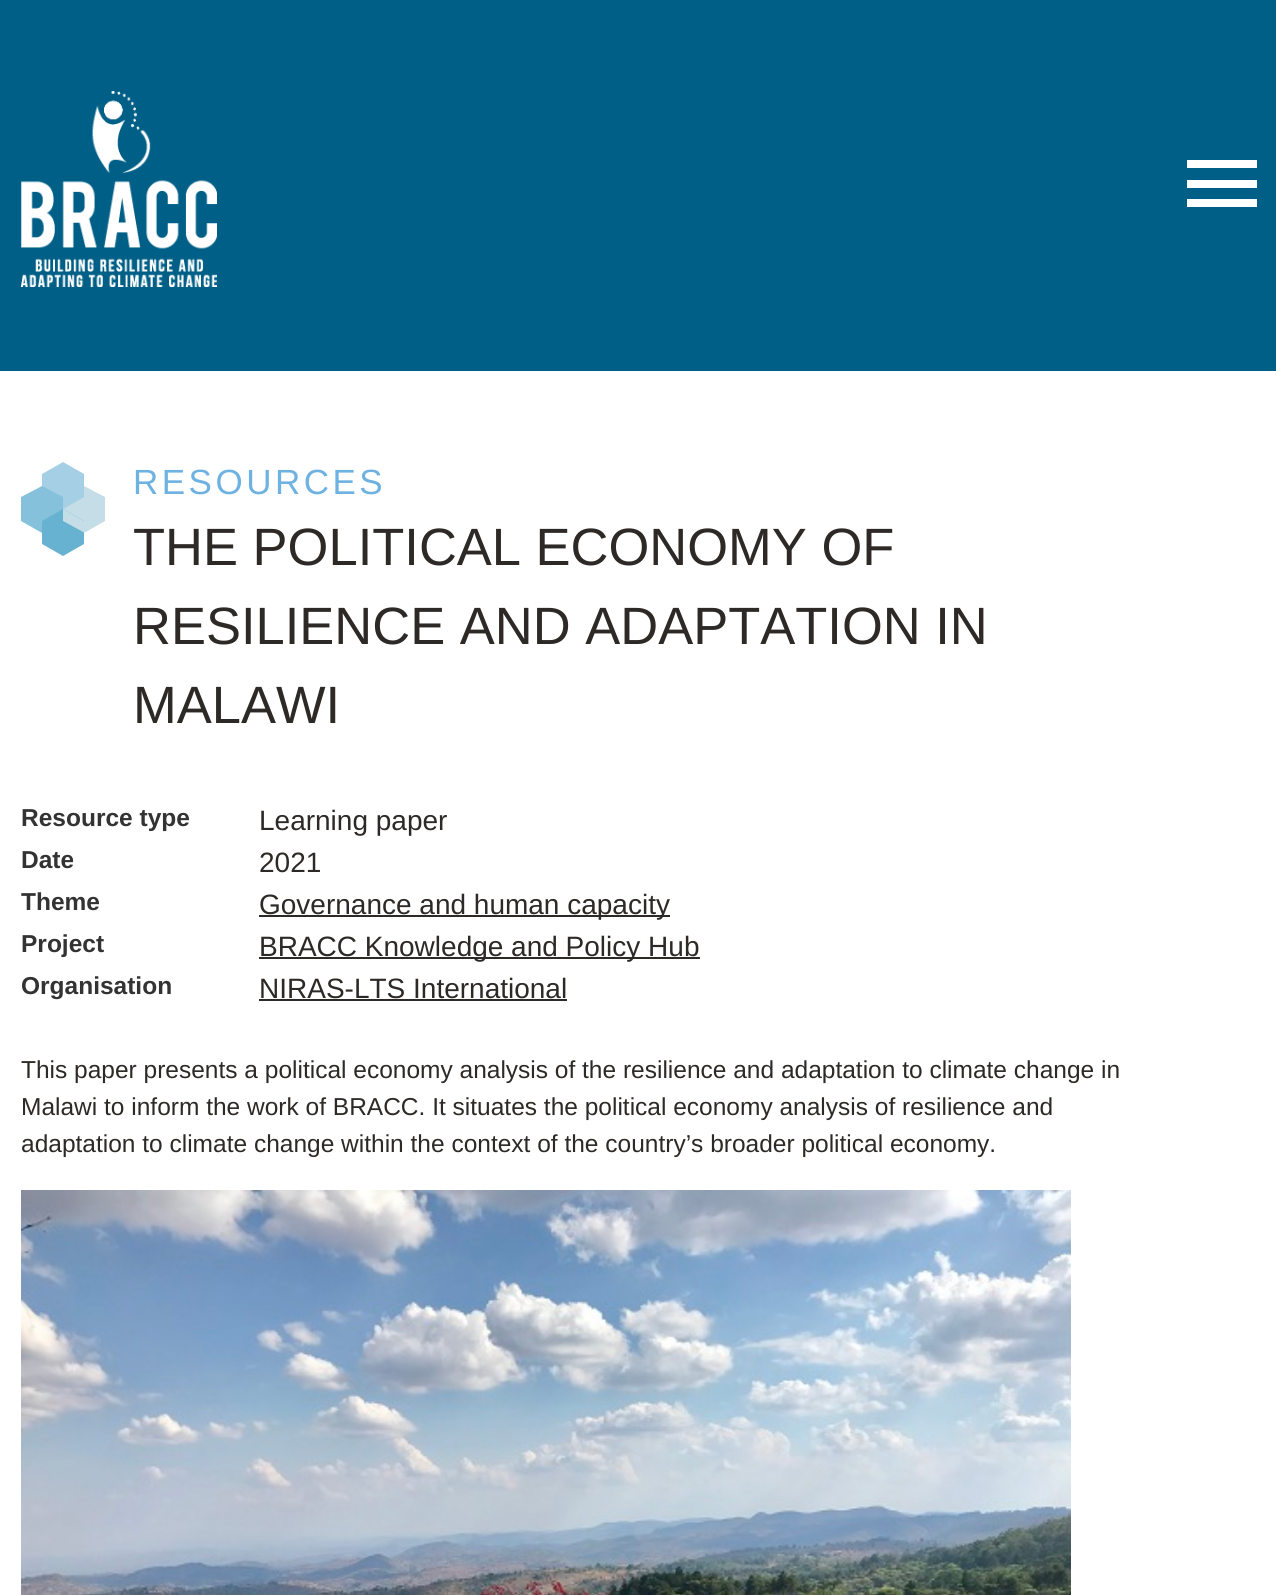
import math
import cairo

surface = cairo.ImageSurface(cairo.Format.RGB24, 1276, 1595)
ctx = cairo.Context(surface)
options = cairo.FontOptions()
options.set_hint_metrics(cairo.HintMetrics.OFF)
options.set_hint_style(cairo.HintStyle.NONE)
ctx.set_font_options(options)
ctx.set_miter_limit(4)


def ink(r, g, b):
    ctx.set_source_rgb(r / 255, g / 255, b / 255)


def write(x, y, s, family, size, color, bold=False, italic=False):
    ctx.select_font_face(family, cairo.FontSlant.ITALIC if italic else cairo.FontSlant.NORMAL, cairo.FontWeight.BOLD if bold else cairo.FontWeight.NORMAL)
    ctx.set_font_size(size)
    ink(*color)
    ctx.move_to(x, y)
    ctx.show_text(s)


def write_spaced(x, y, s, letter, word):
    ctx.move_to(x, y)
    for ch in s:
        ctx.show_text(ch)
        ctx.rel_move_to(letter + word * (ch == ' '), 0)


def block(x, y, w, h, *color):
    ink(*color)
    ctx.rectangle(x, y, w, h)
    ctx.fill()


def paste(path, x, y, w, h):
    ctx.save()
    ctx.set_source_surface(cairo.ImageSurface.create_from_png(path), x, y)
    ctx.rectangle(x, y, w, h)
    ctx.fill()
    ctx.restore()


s1 = dict(family="Liberation Sans", size=52.5, color=(45, 41, 38))
s2 = dict(family="Liberation Sans", size=24.5, color=(51, 51, 51), bold=True)
s3 = dict(family="Liberation Sans", size=28, color=(45, 41, 38))
s4 = dict(family="Liberation Sans", size=24.5, color=(45, 41, 38))

ink(255, 255, 255)
ctx.paint()
block(0, 0, 1276, 371, 0, 95, 134)
paste("pic1.png", 21, 91, 196, 196)
block(1187, 199, 70, 8, 255, 255, 255)
block(1187, 180, 70, 8, 255, 255, 255)
block(1187, 160, 70, 8, 255, 255, 255)
ink(196, 221, 230)
ctx.new_path()
ctx.move_to(63, 497)
ctx.line_to(63, 521)
ctx.line_to(84, 533)
ctx.line_to(105, 521)
ctx.line_to(105, 497)
ctx.line_to(84, 486)
ctx.close_path()
ctx.fill()
ink(165, 207, 228)
ctx.new_path()
ctx.move_to(63, 462)
ctx.line_to(42, 474)
ctx.line_to(42, 497)
ctx.line_to(63, 509)
ctx.line_to(84, 497)
ctx.line_to(84, 474)
ctx.close_path()
ctx.fill()
ink(133, 193, 218)
ctx.new_path()
ctx.move_to(21, 497)
ctx.line_to(21, 521)
ctx.line_to(42, 533)
ctx.line_to(63, 521)
ctx.line_to(63, 497)
ctx.line_to(42, 486)
ctx.close_path()
ctx.fill()
ink(103, 178, 209)
ctx.new_path()
ctx.move_to(42, 521)
ctx.line_to(42, 544)
ctx.line_to(63, 556)
ctx.line_to(84, 544)
ctx.line_to(84, 521)
ctx.line_to(63, 509)
ctx.close_path()
ctx.fill()
ink(196, 221, 230)
ctx.new_path()
ctx.move_to(63, 521)
ctx.line_to(84, 532.5)
ctx.line_to(84, 521)
ctx.line_to(63, 509)
ctx.close_path()
ctx.fill()
ctx.select_font_face("Liberation Sans")
ctx.set_font_size(35)
ink(110, 178, 225)
write_spaced(133, 494, "RESOURCES", 3.5, 0)
write(133, 565, "THE POLITICAL ECONOMY OF", **s1)
write(133, 644, "RESILIENCE AND ADAPTATION IN", **s1)
write(133, 723, "MALAWI", **s1)
write(21, 826, "Resource type", **s2)
write(259, 830, "Learning paper", **s3)
write(21, 868, "Date", **s2)
write(259, 872, "2021", **s3)
write(21, 910, "Theme", **s2)
block(259, 915, 411, 2, 45, 41, 38)
write(259, 914, "Governance and human capacity", **s3)
write(21, 952, "Project", **s2)
block(259, 957, 441, 2, 45, 41, 38)
write(259, 956, "BRACC Knowledge and Policy Hub", **s3)
write(21, 994, "Organisation", **s2)
write(259, 998, "NIRAS-LTS International", **s3)
block(259, 999, 308, 2, 45, 41, 38)
write(21, 1078, "This paper presents a political economy analysis of the resilience and adaptation to climate change in", **s4)
write(21, 1115, "Malawi to inform the work of BRACC. It situates the political economy analysis of resilience and", **s4)
write(21, 1152, "adaptation to climate change within the context of the country’s broader political economy.", **s4)
paste("pic2.png", 21, 1190, 1050, 405)
surface.write_to_png("screenshot.png")
